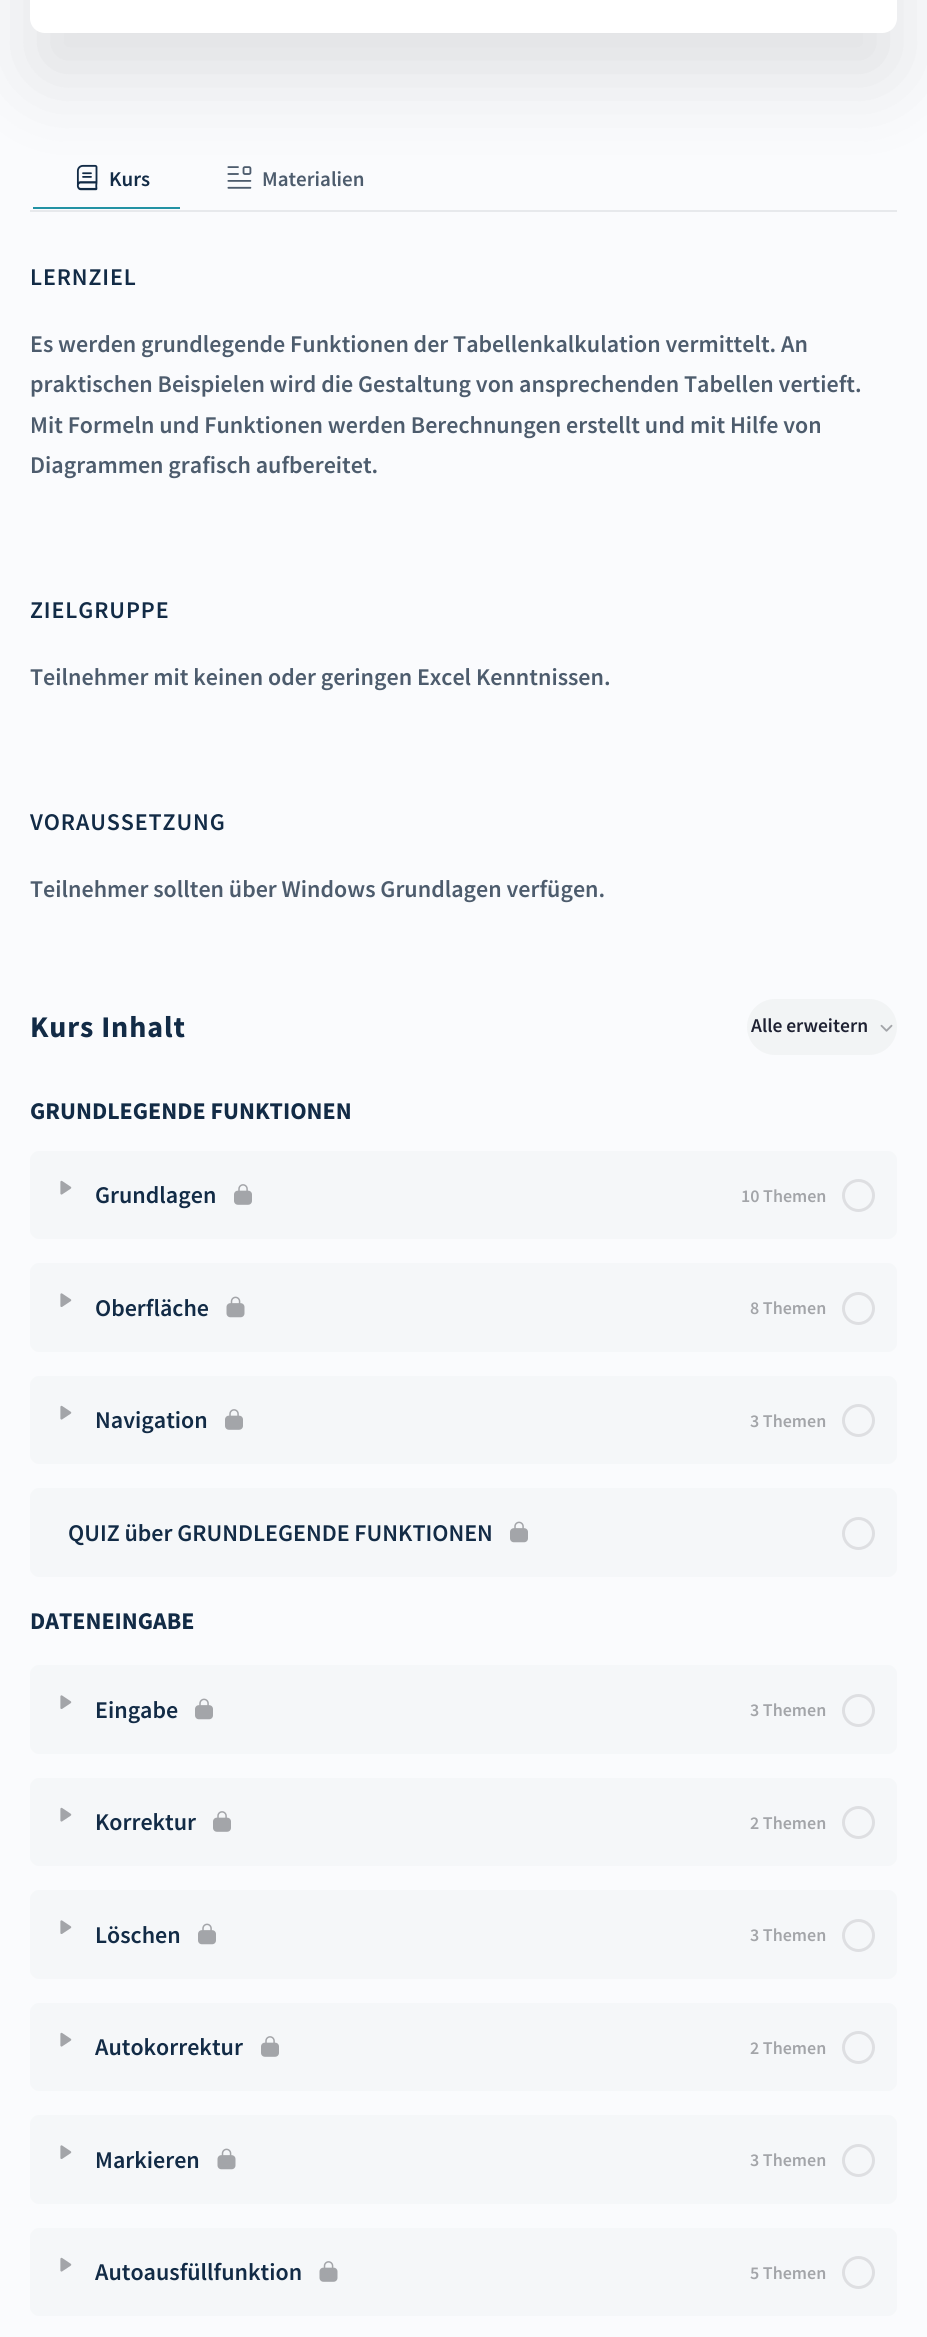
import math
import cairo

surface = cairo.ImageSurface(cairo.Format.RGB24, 927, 2337)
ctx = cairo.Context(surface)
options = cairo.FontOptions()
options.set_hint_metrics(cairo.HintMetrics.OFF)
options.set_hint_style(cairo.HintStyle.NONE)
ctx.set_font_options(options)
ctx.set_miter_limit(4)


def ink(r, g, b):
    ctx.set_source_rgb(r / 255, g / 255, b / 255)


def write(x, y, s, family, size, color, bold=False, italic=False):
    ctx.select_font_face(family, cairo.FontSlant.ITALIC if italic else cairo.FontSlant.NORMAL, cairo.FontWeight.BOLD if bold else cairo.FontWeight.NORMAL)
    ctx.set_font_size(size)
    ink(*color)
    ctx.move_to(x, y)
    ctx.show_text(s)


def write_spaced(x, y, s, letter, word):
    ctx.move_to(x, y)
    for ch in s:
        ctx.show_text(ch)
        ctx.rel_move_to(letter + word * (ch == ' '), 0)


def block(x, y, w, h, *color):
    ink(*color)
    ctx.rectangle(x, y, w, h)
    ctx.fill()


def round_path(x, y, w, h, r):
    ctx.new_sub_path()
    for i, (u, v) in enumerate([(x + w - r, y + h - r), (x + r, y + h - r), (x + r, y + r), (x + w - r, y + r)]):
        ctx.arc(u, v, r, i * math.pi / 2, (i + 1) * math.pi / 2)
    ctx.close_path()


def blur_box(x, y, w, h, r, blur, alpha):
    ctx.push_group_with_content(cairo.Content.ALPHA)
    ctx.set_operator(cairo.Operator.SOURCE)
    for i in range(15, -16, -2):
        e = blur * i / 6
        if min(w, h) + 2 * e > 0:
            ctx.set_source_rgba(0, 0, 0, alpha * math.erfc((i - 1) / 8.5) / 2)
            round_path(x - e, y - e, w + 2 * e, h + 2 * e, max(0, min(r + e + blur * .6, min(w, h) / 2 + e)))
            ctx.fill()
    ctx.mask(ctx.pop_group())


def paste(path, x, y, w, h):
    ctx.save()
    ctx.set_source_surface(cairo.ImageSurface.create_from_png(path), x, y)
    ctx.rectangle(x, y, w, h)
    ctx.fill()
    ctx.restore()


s1 = dict(family="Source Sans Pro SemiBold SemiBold", size=21, color=(18, 43, 70))
s2 = dict(family="Source Sans Pro SemiBold SemiBold", size=21, color=(77, 92, 109))
s3 = dict(family="Source Sans Pro SemiBold SemiBold", size=24, color=(77, 92, 109))
s4 = dict(family="Source Sans Pro SemiBold SemiBold", size=19.5, color=(30, 33, 50))
s5 = dict(family="Source Sans Pro", size=24, color=(18, 43, 70), bold=True)
s6 = dict(family="Source Sans Pro SemiBold SemiBold", size=24, color=(18, 43, 70))
s7 = dict(family="Source Sans Pro SemiBold SemiBold", size=18, color=(163, 165, 169))

ink(250, 251, 253)
ctx.paint()
ink(0, 0, 0)
blur_box(30, -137, 867, 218, 15, 40.5, 0.1)
ink(255, 255, 255)
ctx.new_path()
ctx.move_to(30, -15)
ctx.line_to(897, -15)
ctx.line_to(897, 18)
ctx.curve_to(897, 26.5, 890.5, 33, 882, 33)
ctx.line_to(45, 33)
ctx.curve_to(36.5, 33, 30, 26.5, 30, 18)
ctx.close_path()
ctx.fill()
paste("pic1.png", 76, 164, 22, 27)
write(109, 186, "Kurs", **s1)
block(33, 207, 147, 2, 34, 146, 164)
paste("pic2.png", 227, 166, 25, 23)
write(262, 186, "Materialien", **s2)
block(30, 210, 867, 2, 231, 233, 236)
ctx.set_font_size(24)
ink(18, 43, 70)
write_spaced(30, 285, "LERNZIEL", 0.9, 0)
write(30, 352, "Es werden grundlegende Funktionen der Tabellenkalkulation vermittelt. An", **s3)
write(30, 392, "praktischen Beispielen wird die Gestaltung von ansprechenden Tabellen vertieft.", **s3)
write(30, 433, "Mit Formeln und Funktionen werden Berechnungen erstellt und mit Hilfe von", **s3)
write(30, 473, "Diagrammen grafisch aufbereitet.", **s3)
ink(18, 43, 70)
write_spaced(30, 618, "ZIELGRUPPE", 0.9, 0)
write(30, 685, "Teilnehmer mit keinen oder geringen Excel Kenntnissen.", **s3)
ink(18, 43, 70)
write_spaced(30, 830, "VORAUSSETZUNG", 0.9, 0)
write(30, 897, "Teilnehmer sollten über Windows Grundlagen verfügen.", **s3)
ctx.select_font_face("Source Sans Pro", cairo.FontSlant.NORMAL, cairo.FontWeight.BOLD)
ctx.set_font_size(30)
ink(18, 43, 70)
write_spaced(30, 1037, "Kurs Inhalt", 0.9, 0)
ink(242, 244, 245)
round_path(747, 999, 150, 56, 28)
ctx.fill()
write(751, 1032, "Alle erweitern", **s4)
paste("pic3.png", 880, 1024, 13, 8)
write(30, 1119, "GRUNDLEGENDE FUNKTIONEN", **s5)
ink(245, 247, 249)
round_path(30, 1151, 867, 88, 9)
ctx.fill()
paste("pic4.png", 60, 1180, 12, 15)
write(95, 1203, "Grundlagen", **s6)
paste("pic5.png", 234, 1184, 18, 21)
write(741, 1202, "10 Themen", **s7)
ctx.new_path()
ctx.arc(858.5, 1195.5, 15, 0, 2 * math.pi)
ink(222, 223, 226)
ctx.set_line_width(3)
ctx.stroke()
ink(245, 247, 249)
round_path(30, 1263, 867, 89, 9)
ctx.fill()
paste("pic6.png", 60, 1293, 12, 14)
write(95, 1316, "Oberfläche", **s6)
paste("pic7.png", 226, 1296, 19, 22)
write(750, 1314, "8 Themen", **s7)
ctx.new_path()
ctx.arc(858.5, 1308.5, 15, 0, 2 * math.pi)
ink(222, 223, 226)
ctx.stroke()
ink(245, 247, 249)
round_path(30, 1376, 867, 88, 9)
ctx.fill()
paste("pic4.png", 60, 1405, 12, 15)
write(95, 1428, "Navigation", **s6)
paste("pic5.png", 225, 1409, 18, 21)
write(750, 1427, "3 Themen", **s7)
ctx.new_path()
ctx.arc(858.5, 1420.5, 15, 0, 2 * math.pi)
ink(222, 223, 226)
ctx.stroke()
ink(245, 247, 249)
round_path(30, 1488, 867, 89, 9)
ctx.fill()
write(68, 1541, "QUIZ über GRUNDLEGENDE FUNKTIONEN", **s6)
paste("pic8.png", 510, 1521, 18, 22)
ctx.arc(858.5, 1533.5, 15, 0, 2 * math.pi)
ink(222, 223, 226)
ctx.stroke()
write(30, 1629, "DATENEINGABE", **s5)
ink(245, 247, 249)
round_path(30, 1665, 867, 89, 9)
ctx.fill()
paste("pic6.png", 60, 1695, 12, 14)
write(95, 1718, "Eingabe", **s6)
paste("pic8.png", 195, 1698, 18, 22)
write(750, 1716, "3 Themen", **s7)
ctx.new_path()
ctx.arc(858.5, 1710.5, 15, 0, 2 * math.pi)
ink(222, 223, 226)
ctx.stroke()
ink(245, 247, 249)
round_path(30, 1778, 867, 88, 9)
ctx.fill()
paste("pic4.png", 60, 1807, 12, 15)
write(95, 1830, "Korrektur", **s6)
paste("pic5.png", 213, 1811, 18, 21)
write(750, 1829, "2 Themen", **s7)
ctx.new_path()
ctx.arc(858.5, 1822.5, 15, 0, 2 * math.pi)
ink(222, 223, 226)
ctx.stroke()
ink(245, 247, 249)
round_path(30, 1890, 867, 89, 9)
ctx.fill()
paste("pic6.png", 60, 1920, 12, 14)
write(95, 1943, "Löschen", **s6)
paste("pic8.png", 198, 1923, 18, 22)
write(750, 1941, "3 Themen", **s7)
ctx.new_path()
ctx.arc(858.5, 1935.5, 15, 0, 2 * math.pi)
ink(222, 223, 226)
ctx.stroke()
ink(245, 247, 249)
round_path(30, 2003, 867, 88, 9)
ctx.fill()
paste("pic4.png", 60, 2032, 12, 15)
write(95, 2055, "Autokorrektur", **s6)
paste("pic5.png", 261, 2036, 18, 21)
write(750, 2054, "2 Themen", **s7)
ctx.new_path()
ctx.arc(858.5, 2047.5, 15, 0, 2 * math.pi)
ink(222, 223, 226)
ctx.stroke()
ink(245, 247, 249)
round_path(30, 2115, 867, 89, 9)
ctx.fill()
paste("pic6.png", 60, 2145, 12, 14)
write(95, 2168, "Markieren", **s6)
paste("pic7.png", 217, 2148, 19, 22)
write(750, 2166, "3 Themen", **s7)
ctx.new_path()
ctx.arc(858.5, 2160.5, 15, 0, 2 * math.pi)
ink(222, 223, 226)
ctx.stroke()
ink(245, 247, 249)
round_path(30, 2228, 867, 88, 9)
ctx.fill()
paste("pic4.png", 60, 2257, 12, 15)
write(95, 2280, "Autoausfüllfunktion", **s6)
paste("pic9.png", 319, 2261, 19, 21)
write(750, 2279, "5 Themen", **s7)
ctx.new_path()
ctx.arc(858.5, 2272.5, 15, 0, 2 * math.pi)
ink(222, 223, 226)
ctx.stroke()
surface.write_to_png("screenshot.png")
